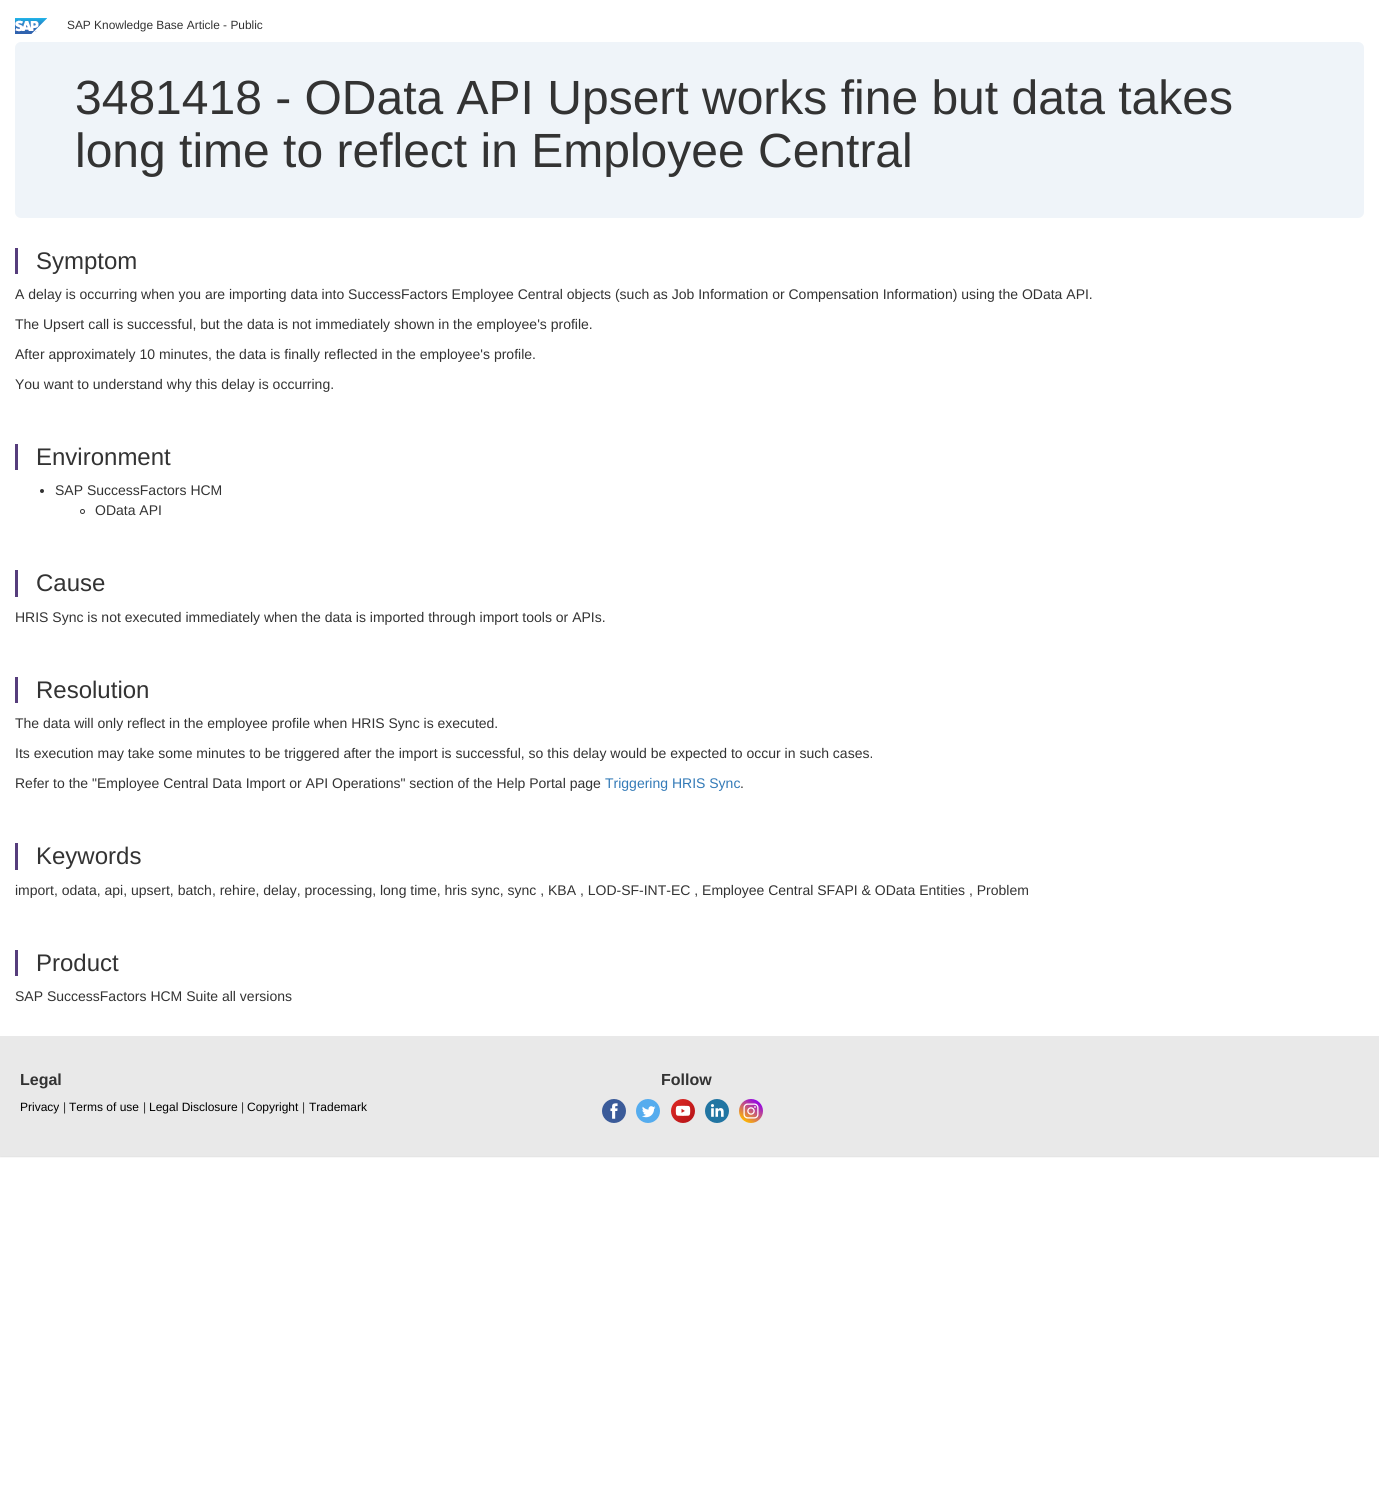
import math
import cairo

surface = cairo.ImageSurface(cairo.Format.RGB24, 1379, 1504)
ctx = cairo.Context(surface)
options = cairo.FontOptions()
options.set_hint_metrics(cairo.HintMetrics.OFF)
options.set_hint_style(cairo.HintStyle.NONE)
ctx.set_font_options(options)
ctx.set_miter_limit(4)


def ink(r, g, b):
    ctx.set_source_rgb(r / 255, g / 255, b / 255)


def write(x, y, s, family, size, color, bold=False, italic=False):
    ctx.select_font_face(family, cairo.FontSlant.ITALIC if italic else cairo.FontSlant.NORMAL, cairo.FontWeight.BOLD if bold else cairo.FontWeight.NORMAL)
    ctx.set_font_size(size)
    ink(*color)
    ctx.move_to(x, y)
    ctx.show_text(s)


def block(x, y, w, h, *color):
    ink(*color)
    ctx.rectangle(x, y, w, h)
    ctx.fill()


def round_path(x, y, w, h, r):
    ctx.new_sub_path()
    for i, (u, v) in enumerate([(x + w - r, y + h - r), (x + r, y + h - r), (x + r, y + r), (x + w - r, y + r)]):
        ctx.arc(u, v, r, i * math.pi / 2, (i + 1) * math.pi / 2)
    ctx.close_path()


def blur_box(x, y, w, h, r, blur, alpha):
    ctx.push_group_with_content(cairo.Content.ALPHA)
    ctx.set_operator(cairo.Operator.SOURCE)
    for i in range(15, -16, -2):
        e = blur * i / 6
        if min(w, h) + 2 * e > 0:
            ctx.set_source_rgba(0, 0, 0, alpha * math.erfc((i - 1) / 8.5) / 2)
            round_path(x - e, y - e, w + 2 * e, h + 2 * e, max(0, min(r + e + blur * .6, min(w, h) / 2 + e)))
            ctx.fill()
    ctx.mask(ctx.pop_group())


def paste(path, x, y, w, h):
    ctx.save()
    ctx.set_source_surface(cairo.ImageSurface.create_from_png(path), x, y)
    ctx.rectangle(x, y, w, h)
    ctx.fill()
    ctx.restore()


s1 = dict(family="Liberation Sans", size=11.9, color=(51, 51, 51))
s2 = dict(family="Liberation Sans", size=48, color=(51, 51, 51))
s3 = dict(family="Liberation Sans", size=24, color=(51, 51, 51))
s4 = dict(family="Liberation Sans", size=14, color=(51, 51, 51))
s5 = dict(family="Liberation Sans", size=14, color=(51, 122, 183))
s6 = dict(family="Liberation Sans", size=16, color=(51, 51, 51), bold=True)
s7 = dict(family="Liberation Sans", size=12, color=(0, 0, 0))
s8 = dict(family="Liberation Sans", size=12, color=(51, 51, 51))

ink(255, 255, 255)
ctx.paint()
paste("pic1.png", 15, 18, 32, 16)
write(67, 29, "SAP Knowledge Base Article - Public", **s1)
ink(239, 244, 249)
round_path(15, 42, 1349, 176, 6)
ctx.fill()
write(75, 114, "3481418 - OData API Upsert works fine but data takes", **s2)
write(75, 167, "long time to reflect in Employee Central", **s2)
block(15, 248, 3, 26, 86, 61, 124)
write(36, 269, "Symptom", **s3)
write(15, 299, "A delay is occurring when you are importing data into SuccessFactors Employee Central objects (such as Job Information or Compensation Information) using the OData API.", **s4)
write(15, 329, "The Upsert call is successful, but the data is not immediately shown in the employee's profile.", **s4)
write(15, 359, "After approximately 10 minutes, the data is finally reflected in the employee's profile.", **s4)
write(15, 389, "You want to understand why this delay is occurring.", **s4)
block(15, 444, 3, 26, 86, 61, 124)
write(36, 465, "Environment", **s3)
ctx.new_path()
ctx.arc(42, 491, 2, 0, 2 * math.pi)
ctx.fill()
write(55, 495, "SAP SuccessFactors HCM", **s4)
ctx.new_path()
ctx.arc(82.5, 511.5, 2, 0, 2 * math.pi)
ctx.set_line_width(1)
ctx.stroke()
write(95, 515, "OData API", **s4)
block(15, 570, 3, 27, 86, 61, 124)
write(36, 591, "Cause", **s3)
write(15, 622, "HRIS Sync is not executed immediately when the data is imported through import tools or APIs.", **s4)
block(15, 677, 3, 26, 86, 61, 124)
write(36, 698, "Resolution", **s3)
write(15, 728, "The data will only reflect in the employee profile when HRIS Sync is executed.", **s4)
write(15, 758, "Its execution may take some minutes to be triggered after the import is successful, so this delay would be expected to occur in such cases.", **s4)
write(15, 788, "Refer to the \"Employee Central Data Import or API Operations\" section of the Help Portal page", **s4)
write(605, 788, "Triggering HRIS Sync", **s5)
write(740, 788, ".", **s4)
block(15, 843, 3, 27, 86, 61, 124)
write(36, 864, "Keywords", **s3)
write(15, 895, "import, odata, api, upsert, batch, rehire, delay, processing, long time, hris sync, sync , KBA , LOD-SF-INT-EC , Employee Central SFAPI & OData Entities , Problem", **s4)
block(15, 950, 3, 26, 86, 61, 124)
write(36, 971, "Product", **s3)
write(15, 1001, "SAP SuccessFactors HCM Suite all versions", **s4)
ink(0, 0, 0)
blur_box(0, 1037, 1379, 120, 0, 0.5, 0.12)
block(0, 1036, 1379, 120, 233, 233, 233)
write(20, 1085, "Legal", **s6)
write(20, 1111, "Privacy", **s7)
write(63, 1111, "|", **s8)
write(69, 1111, "Terms of use", **s7)
write(143, 1111, "|", **s8)
write(149, 1111, "Legal Disclosure", **s7)
write(241, 1111, "|", **s8)
write(247, 1111, "Copyright", **s7)
write(302, 1111, "|", **s8)
write(309, 1111, "Trademark", **s7)
write(661, 1085, "Follow", **s6)
paste("pic2.png", 602, 1099, 24, 24)
paste("pic3.png", 636, 1099, 24, 24)
paste("pic4.png", 671, 1099, 24, 24)
paste("pic5.png", 705, 1099, 24, 24)
paste("pic6.png", 739, 1099, 24, 24)
surface.write_to_png("screenshot.png")
